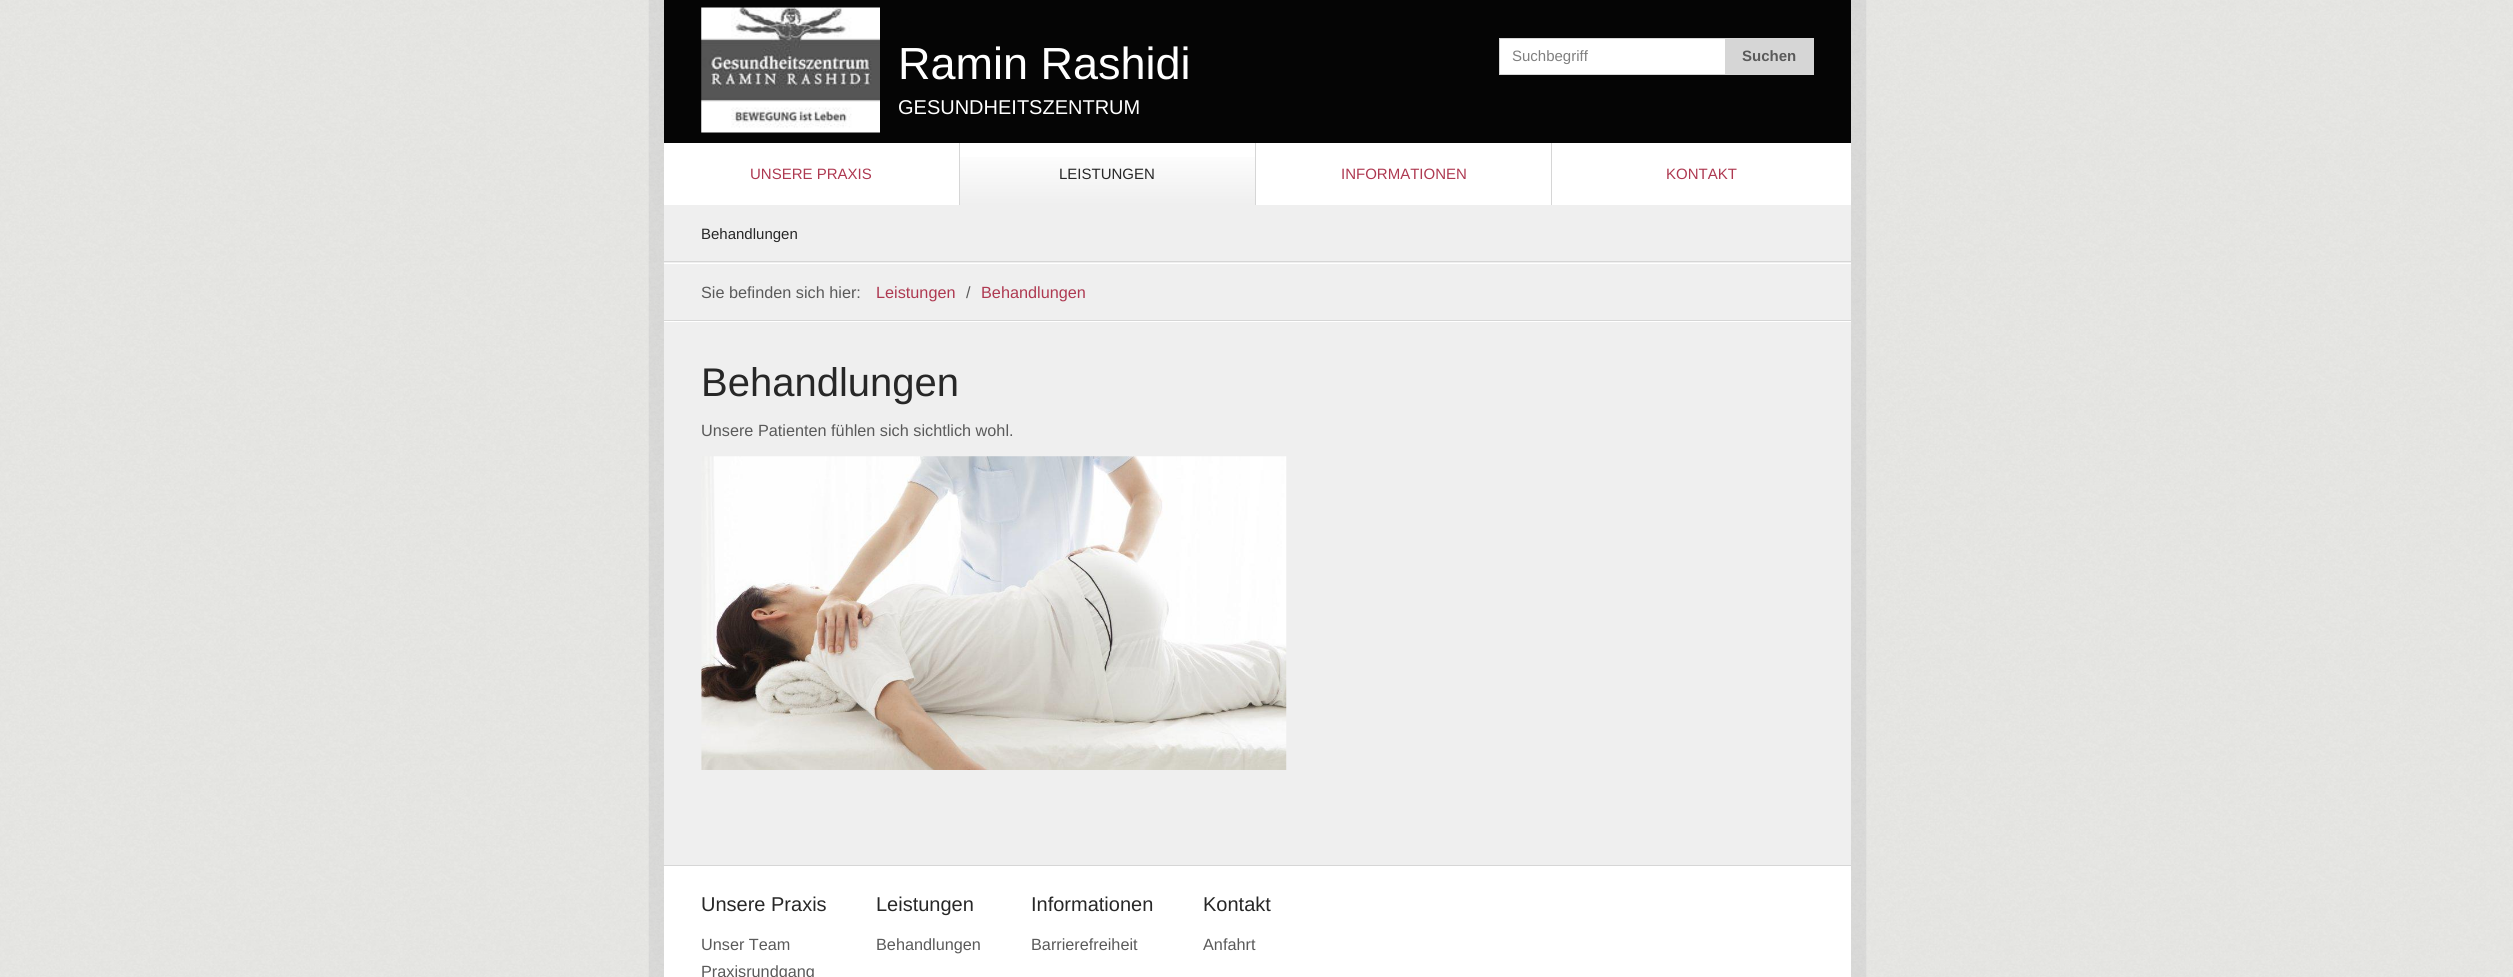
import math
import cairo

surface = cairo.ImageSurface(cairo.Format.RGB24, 2513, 977)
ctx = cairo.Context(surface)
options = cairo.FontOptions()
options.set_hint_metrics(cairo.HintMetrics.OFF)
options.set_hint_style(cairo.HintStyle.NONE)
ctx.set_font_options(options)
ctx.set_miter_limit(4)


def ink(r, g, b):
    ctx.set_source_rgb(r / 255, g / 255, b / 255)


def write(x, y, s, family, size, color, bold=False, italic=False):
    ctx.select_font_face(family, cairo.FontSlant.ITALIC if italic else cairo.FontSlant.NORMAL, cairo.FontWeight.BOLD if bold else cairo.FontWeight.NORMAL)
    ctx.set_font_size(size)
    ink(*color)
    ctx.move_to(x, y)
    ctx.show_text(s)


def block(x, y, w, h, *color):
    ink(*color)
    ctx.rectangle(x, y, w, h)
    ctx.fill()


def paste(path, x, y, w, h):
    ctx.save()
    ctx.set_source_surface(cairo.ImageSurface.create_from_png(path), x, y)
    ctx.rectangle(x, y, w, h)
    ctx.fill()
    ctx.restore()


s1 = dict(family="Liberation Sans", size=45, color=(255, 255, 255))
s2 = dict(family="Liberation Sans", size=20, color=(255, 255, 255))
s3 = dict(family="Liberation Sans", size=15, color=(128, 128, 128))
s4 = dict(family="Liberation Sans", size=15, color=(90, 90, 90), bold=True)
s5 = dict(family="Liberation Sans", size=15, color=(174, 57, 81))
s6 = dict(family="Liberation Sans", size=15, color=(39, 39, 39))
s7 = dict(family="Liberation Sans", size=16.25, color=(90, 90, 90))
s8 = dict(family="Liberation Sans", size=16.25, color=(174, 57, 81))
s9 = dict(family="Liberation Sans", size=40, color=(39, 39, 39))
s10 = dict(family="Liberation Sans", size=20, color=(39, 39, 39))

ink(231, 230, 225)
ctx.paint()
paste("pic1.png", 0, 0, 2513, 977)
paste("pic2.png", 648, 0, 1219, 977)
block(664, 0, 1187, 143, 5, 5, 5)
paste("pic3.png", 701, 7, 179, 126)
write(898, 79, "Ramin Rashidi", **s1)
write(898, 114, "GESUNDHEITSZENTRUM", **s2)
ctx.rectangle(1499.5, 38.5, 226, 36)
ctx.fill_preserve()
ink(214, 214, 214)
ctx.set_line_width(1)
ctx.stroke()
write(1512, 61, "Suchbegriff", **s3)
block(1726, 38, 88, 37, 214, 214, 214)
write(1742, 61, "Suchen", **s4)
block(664, 143, 1187, 62, 255, 255, 255)
block(959, 143, 1, 62, 214, 214, 214)
write(750, 179, "UNSERE PRAXIS", **s5)
gradient = cairo.LinearGradient(1108, 142, 1108, 205)
gradient.add_color_stop_rgba(0, 1, 1, 1, 1)
gradient.add_color_stop_rgba(0.1, 1, 1, 1, 1)
gradient.add_color_stop_rgba(1, 0.937, 0.937, 0.937, 1)
ctx.set_source(gradient)
ctx.rectangle(960, 157, 295, 48)
ctx.fill()
block(1255, 143, 1, 62, 214, 214, 214)
write(1059, 179, "LEISTUNGEN", **s6)
block(1551, 143, 1, 62, 214, 214, 214)
write(1341, 179, "INFORMATIONEN", **s5)
write(1666, 179, "KONTAKT", **s5)
block(664, 205, 1187, 58, 239, 239, 239)
block(664, 261, 1187, 1, 214, 214, 214)
write(701, 239, "Behandlungen", **s6)
block(664, 264, 1187, 56, 239, 239, 239)
block(664, 263, 1187, 1, 255, 255, 255)
block(674, 320, 1177, 1, 214, 214, 214)
write(701, 298, "Sie befinden sich hier:", **s7)
write(876, 298, "Leistungen", **s8)
write(966, 298, "/", **s7)
write(981, 298, "Behandlungen", **s8)
block(664, 322, 1187, 543, 239, 239, 239)
block(664, 321, 1187, 1, 255, 255, 255)
block(664, 865, 1187, 1, 214, 214, 214)
write(701, 396, "Behandlungen", **s9)
write(701, 436, "Unsere Patienten fühlen sich sichtlich wohl.", **s7)
paste("pic4.png", 701, 456, 586, 314)
block(664, 866, 1187, 111, 255, 255, 255)
write(701, 911, "Unsere Praxis", **s10)
write(701, 950, "Unser Team", **s7)
write(701, 977, "Praxisrundgang", **s7)
write(876, 911, "Leistungen", **s10)
write(876, 950, "Behandlungen", **s7)
write(1031, 911, "Informationen", **s10)
write(1031, 950, "Barrierefreiheit", **s7)
write(1203, 911, "Kontakt", **s10)
write(1203, 950, "Anfahrt", **s7)
surface.write_to_png("screenshot.png")
